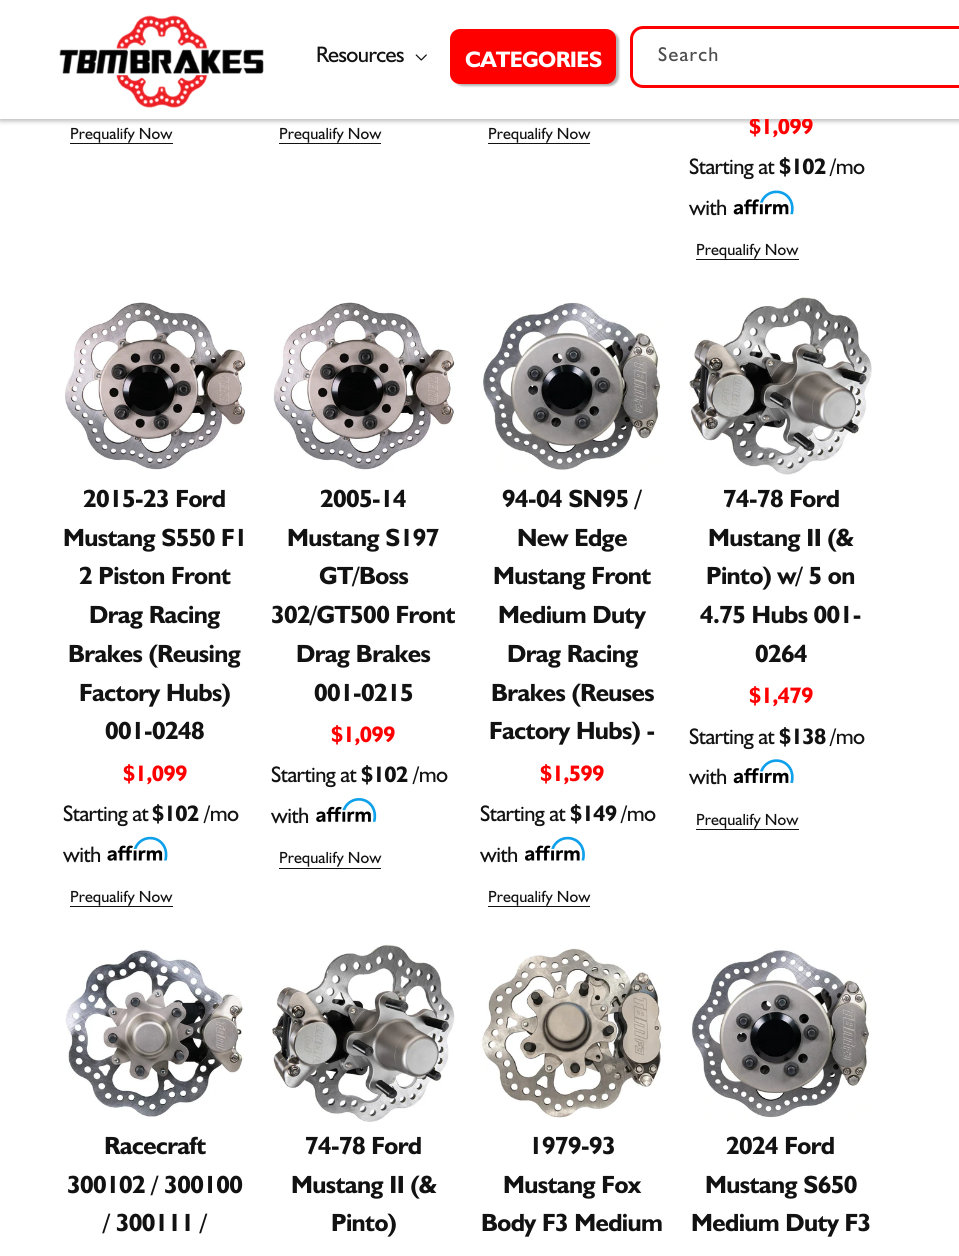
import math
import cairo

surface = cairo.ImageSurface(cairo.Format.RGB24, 959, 1256)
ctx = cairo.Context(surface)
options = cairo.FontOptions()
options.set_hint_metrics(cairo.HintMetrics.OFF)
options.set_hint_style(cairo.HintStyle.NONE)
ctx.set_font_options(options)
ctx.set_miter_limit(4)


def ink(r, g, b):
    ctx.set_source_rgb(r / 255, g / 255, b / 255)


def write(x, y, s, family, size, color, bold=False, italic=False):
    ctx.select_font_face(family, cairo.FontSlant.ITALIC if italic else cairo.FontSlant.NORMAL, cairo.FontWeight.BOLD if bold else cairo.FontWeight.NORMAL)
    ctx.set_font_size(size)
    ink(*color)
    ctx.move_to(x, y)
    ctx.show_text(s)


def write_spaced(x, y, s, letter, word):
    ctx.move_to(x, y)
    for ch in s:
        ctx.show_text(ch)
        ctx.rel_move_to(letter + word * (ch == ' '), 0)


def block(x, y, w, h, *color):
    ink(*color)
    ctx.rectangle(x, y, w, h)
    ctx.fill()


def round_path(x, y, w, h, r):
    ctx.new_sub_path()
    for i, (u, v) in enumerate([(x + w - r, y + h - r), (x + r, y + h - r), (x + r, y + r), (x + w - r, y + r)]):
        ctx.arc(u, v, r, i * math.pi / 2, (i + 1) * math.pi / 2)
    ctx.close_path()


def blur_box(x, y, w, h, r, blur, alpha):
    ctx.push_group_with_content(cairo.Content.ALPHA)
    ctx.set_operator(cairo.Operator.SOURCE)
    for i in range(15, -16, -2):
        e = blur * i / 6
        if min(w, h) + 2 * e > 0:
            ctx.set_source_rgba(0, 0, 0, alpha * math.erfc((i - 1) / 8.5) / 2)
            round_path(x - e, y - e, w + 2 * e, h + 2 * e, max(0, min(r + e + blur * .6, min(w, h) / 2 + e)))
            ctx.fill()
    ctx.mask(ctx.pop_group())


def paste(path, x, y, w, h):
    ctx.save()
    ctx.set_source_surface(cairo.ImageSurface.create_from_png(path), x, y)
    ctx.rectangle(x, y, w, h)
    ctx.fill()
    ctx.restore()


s1 = dict(family="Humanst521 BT", size=16.25, color=(18, 18, 18))

ink(255, 255, 255)
ctx.paint()
ink(0, 0, 0)
blur_box(0, 3, 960, 118, 0, 2.5, 0.28)
ctx.select_font_face("Humanst521 BT", cairo.FontSlant.NORMAL, cairo.FontWeight.BOLD)
ctx.set_font_size(22.5)
ink(255, 0, 0)
write_spaced(749, 134, "$1,099", -0.6, 0)
block(0, 0, 959, 119, 255, 255, 255)
paste("pic1.png", 59, 15, 205, 93)
ctx.select_font_face("Humanst521 BT")
ink(18, 18, 18)
write_spaced(316, 62, "Resources", -0.6, 0)
paste("pic2.png", 415, 54, 12, 7)
ink(0, 0, 0)
blur_box(453, 31, 166, 55, 10, 1, 0.3)
ink(255, 0, 0)
round_path(450, 29, 166, 55, 10)
ctx.fill()
ctx.select_font_face("Humanst521 BT", cairo.FontSlant.NORMAL, cairo.FontWeight.BOLD)
ink(255, 255, 255)
write_spaced(465, 67, "CATEGORIES", -0.6, 0)
round_path(631.5, 27.5, 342, 59, 11.5)
ink(255, 0, 0)
ctx.set_line_width(3)
ctx.stroke()
ctx.select_font_face("Humanst521 BT")
ctx.set_font_size(20)
ink(77, 77, 77)
write_spaced(658, 61, "Search", 1.25, 0)
write(70, 139, "Prequalify Now", **s1)
block(70, 143, 103, 1, 18, 18, 18)
write(279, 139, "Prequalify Now", **s1)
block(279, 143, 102, 1, 18, 18, 18)
write(488, 139, "Prequalify Now", **s1)
block(488, 143, 102, 1, 18, 18, 18)
ctx.set_font_size(22.5)
write_spaced(689, 174, "Starting at", -0.6, 0)
ctx.select_font_face("Humanst521 BT", cairo.FontSlant.NORMAL, cairo.FontWeight.BOLD)
write_spaced(779, 174, "$102", -0.6, 0)
ctx.select_font_face("Humanst521 BT")
write_spaced(830, 174, "/mo", -0.6, 0)
write_spaced(689, 215, "with", -0.6, 0)
paste("pic3.png", 733, 190, 61, 25)
write(696, 255, "Prequalify Now", **s1)
block(696, 259, 103, 1, 18, 18, 18)
paste("pic4.png", 65, 302, 181, 168)
ctx.select_font_face("Humanst521 BT", cairo.FontSlant.NORMAL, cairo.FontWeight.BOLD)
ctx.set_font_size(25)
write_spaced(83, 507, "2015-23 Ford", -0.6, 0)
write_spaced(63, 546, "Mustang S550 F1", -0.6, 0)
write_spaced(79, 584, "2 Piston Front", -0.6, 0)
write_spaced(89, 623, "Drag Racing", -0.6, 0)
write_spaced(68, 662, "Brakes (Reusing", -0.6, 0)
write_spaced(79, 701, "Factory Hubs)", -0.6, 0)
write_spaced(105, 739, "001-0248", -0.6, 0)
ctx.set_font_size(22.5)
ink(255, 0, 0)
write_spaced(123, 781, "$1,099", -0.6, 0)
ctx.select_font_face("Humanst521 BT")
ink(18, 18, 18)
write_spaced(63, 821, "Starting at", -0.6, 0)
ctx.select_font_face("Humanst521 BT", cairo.FontSlant.NORMAL, cairo.FontWeight.BOLD)
write_spaced(152, 821, "$102", -0.6, 0)
ctx.select_font_face("Humanst521 BT")
write_spaced(204, 821, "/mo", -0.6, 0)
write_spaced(63, 862, "with", -0.6, 0)
paste("pic5.png", 107, 836, 61, 25)
write(70, 902, "Prequalify Now", **s1)
block(70, 906, 103, 1, 18, 18, 18)
paste("pic6.png", 273, 302, 182, 168)
ctx.select_font_face("Humanst521 BT", cairo.FontSlant.NORMAL, cairo.FontWeight.BOLD)
ctx.set_font_size(25)
write_spaced(320, 507, "2005-14", -0.6, 0)
write_spaced(287, 546, "Mustang S197", -0.6, 0)
write_spaced(319, 584, "GT/Boss", -0.6, 0)
write_spaced(271, 623, "302/GT500 Front", -0.6, 0)
write_spaced(296, 662, "Drag Brakes", -0.6, 0)
write_spaced(314, 701, "001-0215", -0.6, 0)
ctx.set_font_size(22.5)
ink(255, 0, 0)
write_spaced(331, 742, "$1,099", -0.6, 0)
ctx.select_font_face("Humanst521 BT")
ink(18, 18, 18)
write_spaced(271, 782, "Starting at", -0.6, 0)
ctx.select_font_face("Humanst521 BT", cairo.FontSlant.NORMAL, cairo.FontWeight.BOLD)
write_spaced(361, 782, "$102", -0.6, 0)
ctx.select_font_face("Humanst521 BT")
write_spaced(413, 782, "/mo", -0.6, 0)
write_spaced(271, 823, "with", -0.6, 0)
paste("pic7.png", 316, 798, 61, 24)
write(279, 863, "Prequalify Now", **s1)
block(279, 868, 102, 1, 18, 18, 18)
paste("pic8.png", 482, 301, 179, 169)
ctx.select_font_face("Humanst521 BT", cairo.FontSlant.NORMAL, cairo.FontWeight.BOLD)
ctx.set_font_size(25)
write_spaced(502, 507, "94-04 SN95 /", -0.6, 0)
write_spaced(517, 546, "New Edge", -0.6, 0)
write_spaced(493, 584, "Mustang Front", -0.6, 0)
write_spaced(498, 623, "Medium Duty", -0.6, 0)
write_spaced(507, 662, "Drag Racing", -0.6, 0)
write_spaced(491, 701, "Brakes (Reuses", -0.6, 0)
write_spaced(489, 739, "Factory Hubs) -", -0.6, 0)
ctx.set_font_size(22.5)
ink(255, 0, 0)
write_spaced(540, 781, "$1,599", -0.6, 0)
ctx.select_font_face("Humanst521 BT")
ink(18, 18, 18)
write_spaced(480, 821, "Starting at", -0.6, 0)
ctx.select_font_face("Humanst521 BT", cairo.FontSlant.NORMAL, cairo.FontWeight.BOLD)
write_spaced(570, 821, "$149", -0.6, 0)
ctx.select_font_face("Humanst521 BT")
write_spaced(621, 821, "/mo", -0.6, 0)
write_spaced(480, 862, "with", -0.6, 0)
paste("pic9.png", 525, 836, 60, 25)
write(488, 902, "Prequalify Now", **s1)
block(488, 906, 102, 1, 18, 18, 18)
paste("pic10.png", 689, 296, 183, 179)
ctx.select_font_face("Humanst521 BT", cairo.FontSlant.NORMAL, cairo.FontWeight.BOLD)
ctx.set_font_size(25)
write_spaced(723, 507, "74-78 Ford", -0.6, 0)
write_spaced(708, 546, "Mustang II (&", -0.6, 0)
write_spaced(706, 584, "Pinto) w/ 5 on", -0.6, 0)
write_spaced(700, 623, "4.75 Hubs 001-", -0.6, 0)
write_spaced(755, 662, "0264", -0.6, 0)
ctx.set_font_size(22.5)
ink(255, 0, 0)
write_spaced(749, 703, "$1,479", -0.6, 0)
ctx.select_font_face("Humanst521 BT")
ink(18, 18, 18)
write_spaced(689, 744, "Starting at", -0.6, 0)
ctx.select_font_face("Humanst521 BT", cairo.FontSlant.NORMAL, cairo.FontWeight.BOLD)
write_spaced(779, 744, "$138", -0.6, 0)
ctx.select_font_face("Humanst521 BT")
write_spaced(830, 744, "/mo", -0.6, 0)
write_spaced(689, 784, "with", -0.6, 0)
paste("pic11.png", 733, 759, 61, 25)
write(696, 825, "Prequalify Now", **s1)
block(696, 829, 103, 1, 18, 18, 18)
paste("pic12.png", 65, 949, 179, 168)
ctx.select_font_face("Humanst521 BT", cairo.FontSlant.NORMAL, cairo.FontWeight.BOLD)
ctx.set_font_size(25)
write_spaced(104, 1154, "Racecraft", -0.6, 0)
write_spaced(67, 1193, "300102 / 300100", -0.6, 0)
write_spaced(103, 1231, "/ 300111 /", -0.6, 0)
paste("pic13.png", 271, 944, 184, 178)
write_spaced(305, 1154, "74-78 Ford", -0.6, 0)
write_spaced(291, 1193, "Mustang II (&", -0.6, 0)
write_spaced(331, 1231, "Pinto)", -0.6, 0)
paste("pic14.png", 480, 948, 182, 170)
write_spaced(529, 1154, "1979-93", -0.6, 0)
write_spaced(503, 1193, "Mustang Fox", -0.6, 0)
write_spaced(481, 1231, "Body F3 Medium", -0.6, 0)
paste("pic15.png", 691, 949, 179, 169)
write_spaced(726, 1154, "2024 Ford", -0.6, 0)
write_spaced(705, 1193, "Mustang S650", -0.6, 0)
write_spaced(691, 1231, "Medium Duty F3", -0.6, 0)
surface.write_to_png("screenshot.png")
